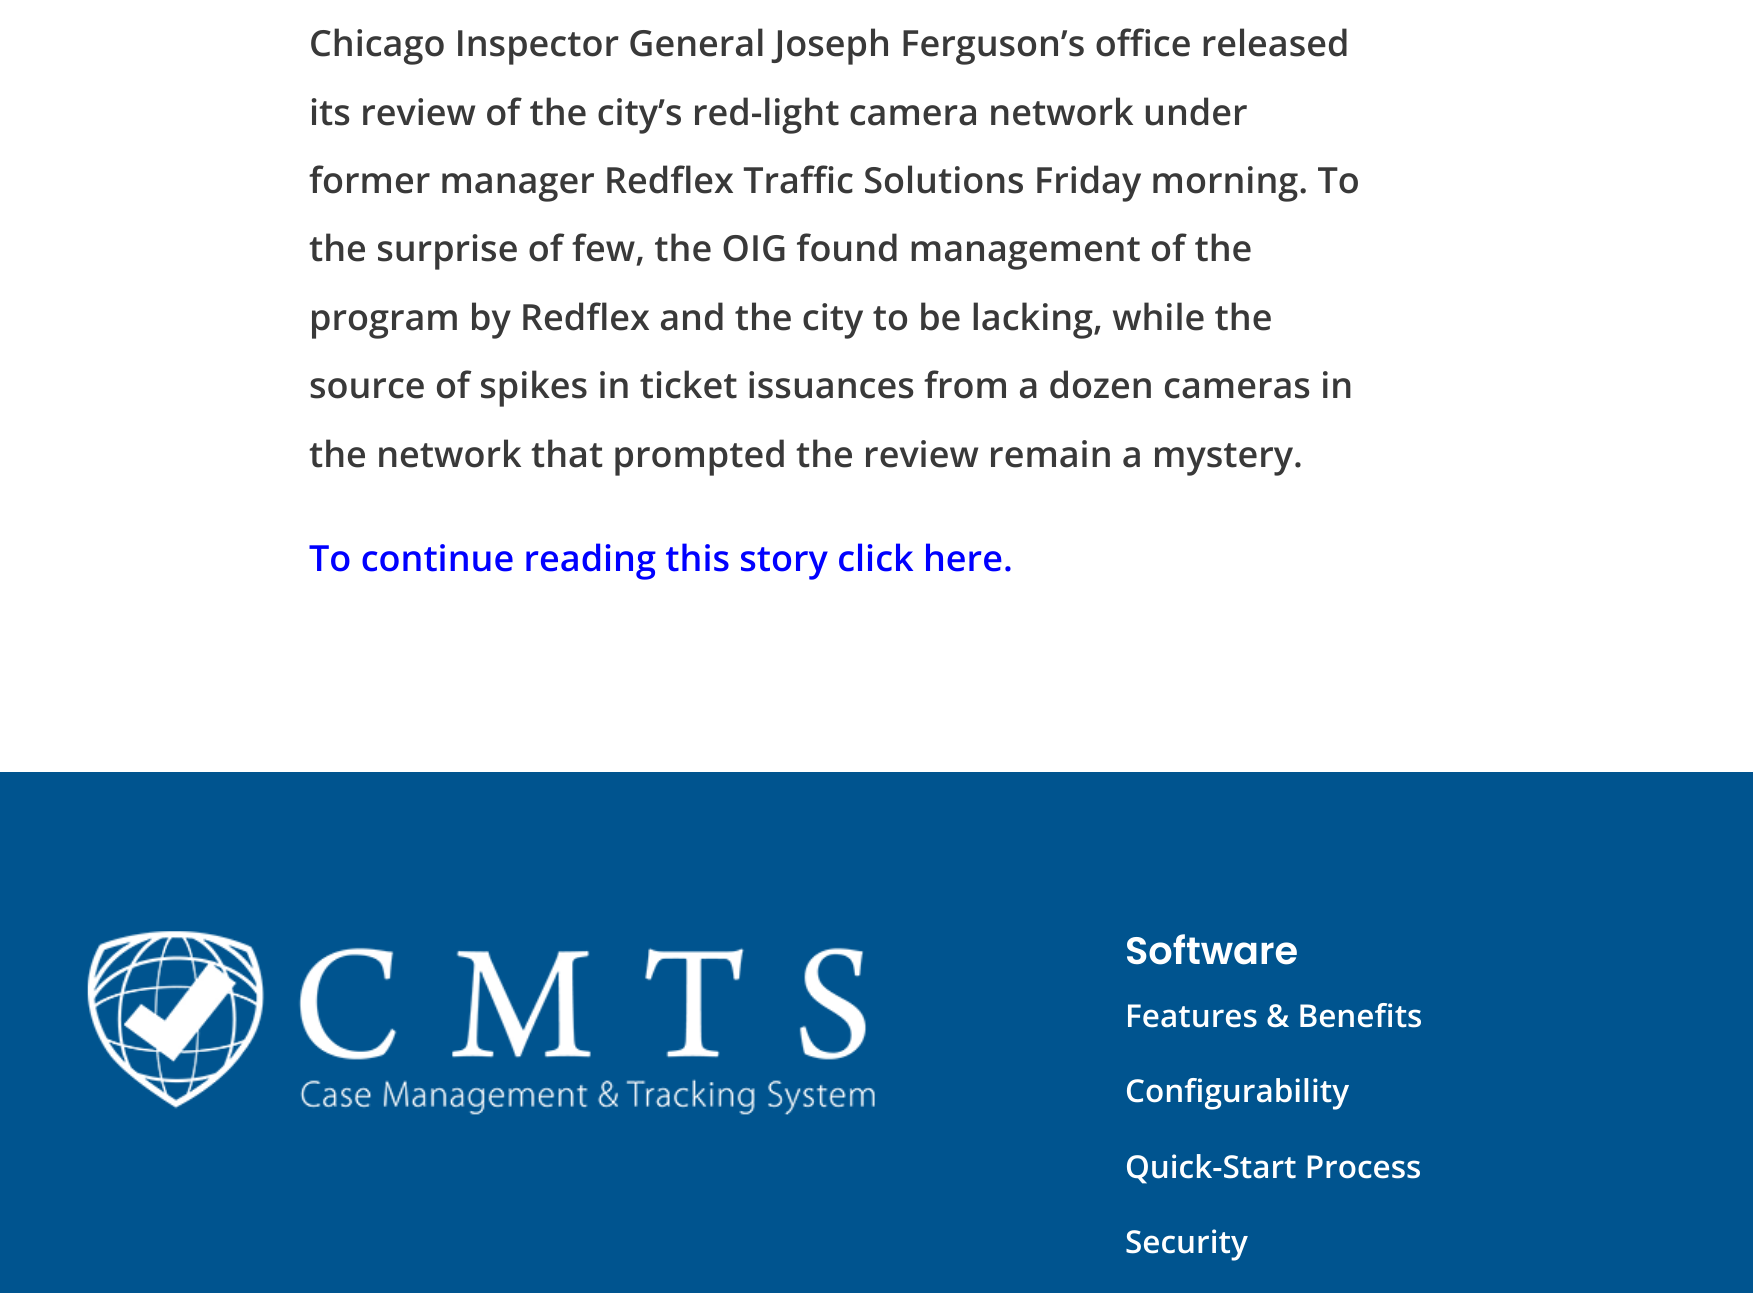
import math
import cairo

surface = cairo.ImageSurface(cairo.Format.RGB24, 1753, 1293)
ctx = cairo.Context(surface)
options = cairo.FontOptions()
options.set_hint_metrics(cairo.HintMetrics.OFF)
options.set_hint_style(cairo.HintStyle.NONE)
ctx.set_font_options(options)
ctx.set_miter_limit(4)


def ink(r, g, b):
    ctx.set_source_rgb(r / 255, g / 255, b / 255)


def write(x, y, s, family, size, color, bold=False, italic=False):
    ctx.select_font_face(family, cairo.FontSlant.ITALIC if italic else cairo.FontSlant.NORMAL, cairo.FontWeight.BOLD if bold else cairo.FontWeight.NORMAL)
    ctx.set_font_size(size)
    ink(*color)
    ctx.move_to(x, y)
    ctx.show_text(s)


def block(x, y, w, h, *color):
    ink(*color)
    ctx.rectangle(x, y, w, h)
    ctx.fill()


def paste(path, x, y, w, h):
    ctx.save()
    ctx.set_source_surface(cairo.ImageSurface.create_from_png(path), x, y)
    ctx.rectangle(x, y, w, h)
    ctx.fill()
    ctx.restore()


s1 = dict(family="Open Sans SemiBold", size=36, color=(57, 57, 57))
s2 = dict(family="Open Sans SemiBold", size=36, color=(0, 0, 255))
s3 = dict(family="Poppins SemiBold", size=38.25, color=(255, 255, 255))
s4 = dict(family="Open Sans SemiBold", size=31.5, color=(255, 255, 255))

ink(255, 255, 255)
ctx.paint()
write(309, 56, "Chicago Inspector General Joseph Ferguson’s office released", **s1)
write(309, 125, "its review of the city’s red-light camera network under", **s1)
write(309, 193, "former manager Redflex Traffic Solutions Friday morning. To", **s1)
write(309, 261, "the surprise of few, the OIG found management of the", **s1)
write(309, 330, "program by Redflex and the city to be lacking, while the", **s1)
write(309, 398, "source of spikes in ticket issuances from a dozen cameras in", **s1)
write(309, 467, "the network that prompted the review remain a mystery.", **s1)
write(309, 571, "To continue reading this story click here.", **s2)
block(0, 772, 1753, 521, 0, 84, 143)
paste("pic1.png", 87, 931, 788, 184)
write(1125, 964, "Software", **s3)
write(1125, 1027, "Features & Benefits", **s4)
write(1125, 1102, "Configurability", **s4)
write(1125, 1178, "Quick-Start Process", **s4)
write(1125, 1253, "Security", **s4)
surface.write_to_png("screenshot.png")
